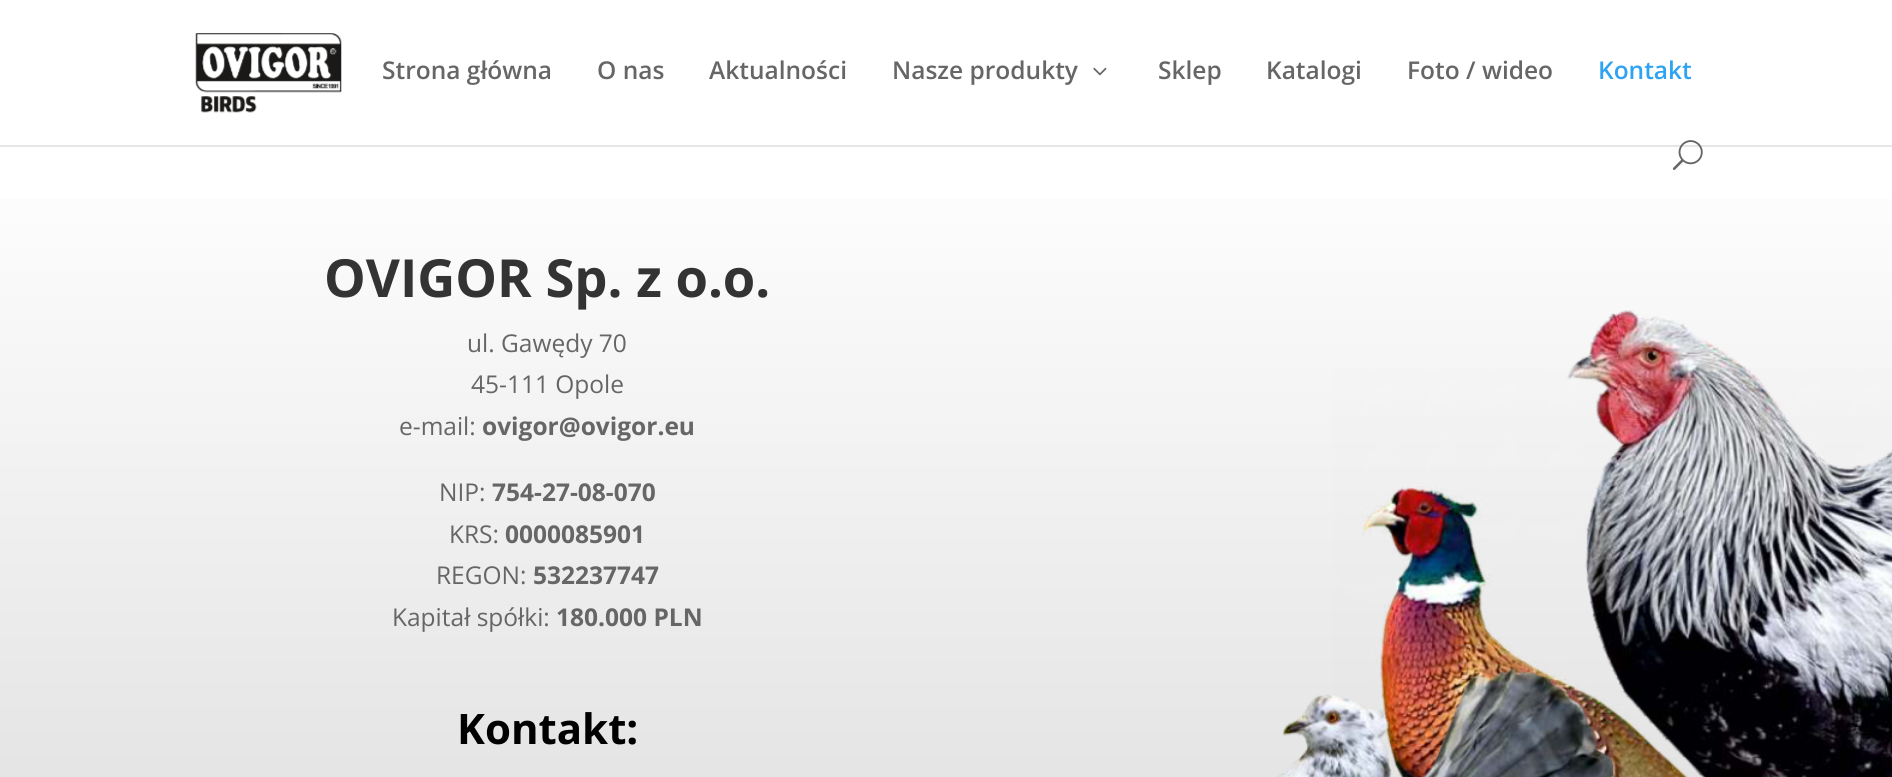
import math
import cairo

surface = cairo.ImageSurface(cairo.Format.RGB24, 1892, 777)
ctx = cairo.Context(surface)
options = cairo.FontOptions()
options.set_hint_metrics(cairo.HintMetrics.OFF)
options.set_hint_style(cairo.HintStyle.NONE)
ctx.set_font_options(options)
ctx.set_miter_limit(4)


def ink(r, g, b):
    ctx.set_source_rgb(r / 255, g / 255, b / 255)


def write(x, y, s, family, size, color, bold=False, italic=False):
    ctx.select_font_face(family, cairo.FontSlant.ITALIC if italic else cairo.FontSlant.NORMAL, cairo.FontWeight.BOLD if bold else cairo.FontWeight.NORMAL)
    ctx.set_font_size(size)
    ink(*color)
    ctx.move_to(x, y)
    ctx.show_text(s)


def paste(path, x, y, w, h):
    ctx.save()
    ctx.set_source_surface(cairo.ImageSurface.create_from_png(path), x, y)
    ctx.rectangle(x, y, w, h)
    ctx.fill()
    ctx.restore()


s1 = dict(family="Open Sans SemiBold", size=24.5, color=(102, 102, 102))
s2 = dict(family="Open Sans SemiBold", size=24.5, color=(46, 163, 242))
s3 = dict(family="Open Sans", size=52.5, color=(51, 51, 51), bold=True)
s4 = dict(family="Open Sans", size=24.5, color=(102, 102, 102))
s5 = dict(family="Open Sans", size=24.5, color=(102, 102, 102), bold=True)
s6 = dict(family="Open Sans", size=42, color=(0, 0, 0), bold=True)

ink(255, 255, 255)
ctx.paint()
ink(230, 230, 230)
ctx.new_path()
ctx.move_to(0, 145)
ctx.line_to(0, 147)
ctx.line_to(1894, 147)
ctx.line_to(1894, 2)
ctx.line_to(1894, 145)
ctx.close_path()
ctx.fill()
paste("pic1.png", 195, 33, 147, 80)
write(382, 79, "Strona główna", **s1)
write(597, 79, "O nas", **s1)
write(709, 79, "Aktualności", **s1)
write(892, 79, "Nasze produkty", **s1)
paste("pic2.png", 1093, 67, 14, 9)
write(1158, 79, "Sklep", **s1)
write(1266, 79, "Katalogi", **s1)
write(1407, 79, "Foto / wideo", **s1)
write(1598, 79, "Kontakt", **s2)
paste("pic3.png", 1672, 140, 31, 30)
gradient = cairo.LinearGradient(947, 138, 947, 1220)
gradient.add_color_stop_rgba(0, 1, 1, 1, 1)
gradient.add_color_stop_rgba(0.99, 0.827, 0.827, 0.827, 1)
ctx.set_source(gradient)
ctx.rectangle(0, 199, 1892, 578)
ctx.fill()
write(324, 297, "OVIGOR Sp. z o.o.", **s3)
write(467, 352, "ul. Gawędy 70", **s4)
write(471, 393, "45-111 Opole", **s4)
write(399, 435, "e-mail:", **s4)
write(482, 435, "ovigor@ovigor.eu", **s5)
write(439, 501, "NIP:", **s4)
write(492, 501, "754-27-08-070", **s5)
write(449, 543, "KRS:", **s4)
write(505, 543, "0000085901", **s5)
write(436, 584, "REGON:", **s4)
write(533, 584, "532237747", **s5)
write(392, 626, "Kapitał spółki:", **s4)
write(556, 626, "180.000 PLN", **s5)
write(457, 744, "Kontakt:", **s6)
paste("pic4.png", 1277, 310, 615, 467)
surface.write_to_png("screenshot.png")
